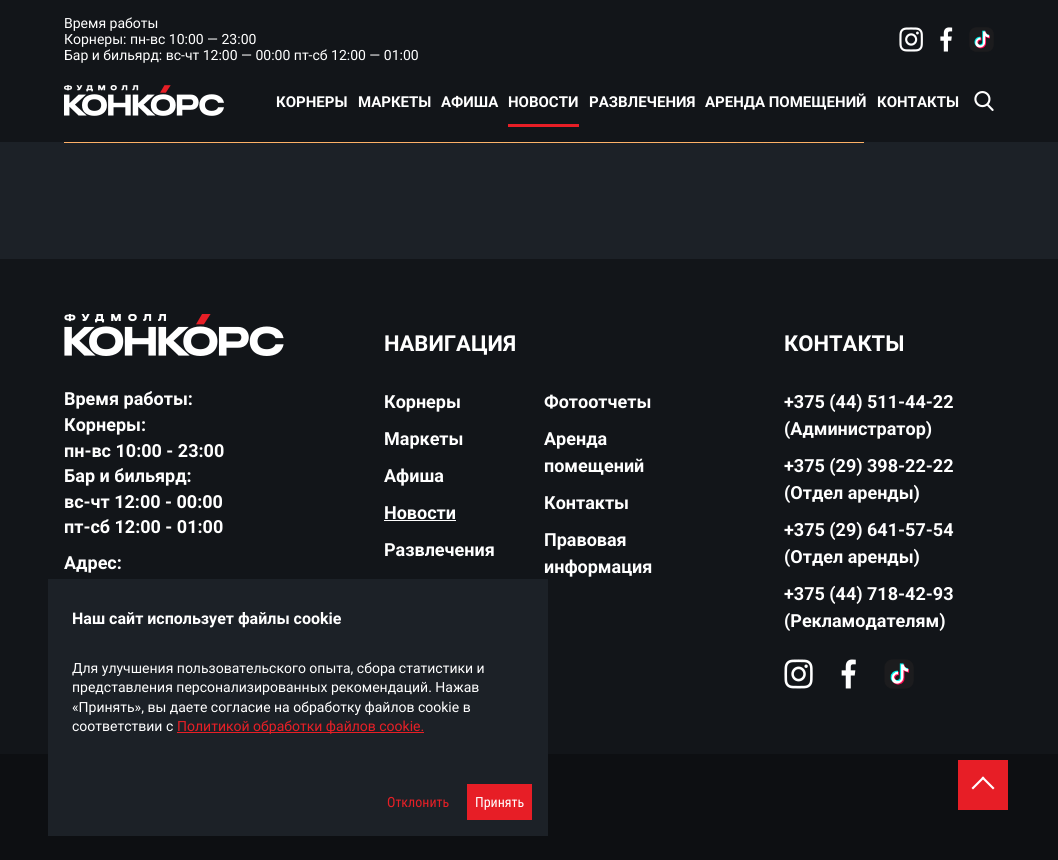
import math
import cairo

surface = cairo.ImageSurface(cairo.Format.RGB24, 1058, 860)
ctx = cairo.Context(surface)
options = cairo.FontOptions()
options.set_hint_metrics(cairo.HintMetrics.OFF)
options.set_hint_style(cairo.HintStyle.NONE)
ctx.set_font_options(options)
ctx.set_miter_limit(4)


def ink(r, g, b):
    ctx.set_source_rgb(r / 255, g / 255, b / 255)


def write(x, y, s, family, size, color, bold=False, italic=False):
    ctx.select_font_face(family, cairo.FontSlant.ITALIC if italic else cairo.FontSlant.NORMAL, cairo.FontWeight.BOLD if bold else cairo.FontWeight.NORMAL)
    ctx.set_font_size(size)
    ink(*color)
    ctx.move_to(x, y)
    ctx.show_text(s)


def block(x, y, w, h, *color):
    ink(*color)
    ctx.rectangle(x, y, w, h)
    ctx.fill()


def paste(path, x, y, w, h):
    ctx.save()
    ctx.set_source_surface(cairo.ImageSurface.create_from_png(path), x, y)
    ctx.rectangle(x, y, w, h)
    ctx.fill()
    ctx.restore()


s1 = dict(family="Roboto", size=14, color=(255, 255, 255))
s2 = dict(family="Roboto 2", size=15, color=(255, 255, 255), bold=True)
s3 = dict(family="Roboto", size=18, color=(255, 255, 255), bold=True)
s4 = dict(family="Roboto", size=22, color=(255, 255, 255), bold=True)
s5 = dict(family="Roboto 2", size=18, color=(255, 255, 255), bold=True)
s6 = dict(family="Roboto", size=16, color=(255, 255, 255), bold=True)
s7 = dict(family="Roboto", size=14, color=(231, 31, 38))
s8 = dict(family="Roboto Condensed", size=14, color=(231, 31, 38))
s9 = dict(family="Roboto Condensed", size=14, color=(255, 255, 255))

ink(28, 33, 39)
ctx.paint()
block(0, 0, 1058, 142, 18, 21, 25)
write(64, 28, "Время работы", **s1)
write(64, 44, "Корнеры: пн-вс 10:00 — 23:00", **s1)
write(64, 60, "Бар и бильярд: вс-чт 12:00 — 00:00 пт-сб 12:00 — 01:00", **s1)
paste("pic1.png", 899, 27, 24, 25)
paste("pic2.png", 940, 27, 13, 25)
paste("pic3.png", 969, 27, 25, 25)
paste("pic4.png", 64, 85, 160, 31)
write(276, 107, "КОРНЕРЫ", **s2)
write(358, 107, "МАРКЕТЫ", **s2)
write(441, 107, "АФИША", **s2)
write(508, 107, "НОВОСТИ", **s2)
block(508, 124, 71, 3, 231, 30, 38)
write(589, 107, "РАЗВЛЕЧЕНИЯ", **s2)
write(705, 107, "АРЕНДА ПОМЕЩЕНИЙ", **s2)
write(877, 107, "КОНТАКТЫ", **s2)
paste("pic5.png", 974, 91, 20, 20)
paste("pic6.png", 64, 142, 800, 1)
block(0, 259, 1058, 495, 18, 21, 25)
paste("pic7.png", 64, 314, 220, 42)
write(64, 405, "Время работы:", **s3)
write(64, 431, "Корнеры:", **s3)
write(64, 457, "пн-вс 10:00 - 23:00", **s3)
write(64, 482, "Бар и бильярд:", **s3)
write(64, 508, "вс-чт 12:00 - 00:00", **s3)
write(64, 533, "пт-сб 12:00 - 01:00", **s3)
write(64, 569, "Адрес:", **s3)
write(384, 351, "НАВИГАЦИЯ", **s4)
write(384, 408, "Корнеры", **s5)
write(384, 445, "Маркеты", **s5)
write(384, 482, "Афиша", **s5)
write(384, 519, "Новости", **s5)
block(384, 520, 72, 1, 255, 255, 255)
write(384, 556, "Развлечения", **s5)
write(544, 408, "Фотоотчеты", **s5)
write(544, 445, "Аренда", **s5)
write(544, 472, "помещений", **s5)
write(544, 509, "Контакты", **s5)
write(544, 546, "Правовая", **s5)
write(544, 573, "информация", **s5)
write(784, 351, "КОНТАКТЫ", **s4)
write(784, 408, "+375 (44) 511-44-22", **s5)
write(784, 435, "(Администратор)", **s5)
write(784, 472, "+375 (29) 398-22-22", **s5)
write(784, 499, "(Отдел аренды)", **s5)
write(784, 536, "+375 (29) 641-57-54", **s5)
write(784, 563, "(Отдел аренды)", **s5)
write(784, 600, "+375 (44) 718-42-93", **s5)
write(784, 627, "(Рекламодателям)", **s5)
paste("pic8.png", 784, 659, 29, 30)
paste("pic9.png", 841, 659, 15, 30)
paste("pic10.png", 884, 659, 30, 30)
block(0, 754, 1058, 106, 13, 15, 18)
block(48, 579, 500, 257, 28, 33, 39)
write(72, 624, "Наш сайт использует файлы cookie", **s6)
write(72, 673, "Для улучшения пользовательского опыта, сбора статистики и", **s1)
write(72, 692, "представления персонализированных рекомендаций. Нажав", **s1)
write(72, 712, "«Принять», вы даете согласие на обработку файлов cookie в", **s1)
write(72, 731, "соответствии с", **s1)
block(177, 732, 247, 1, 231, 31, 38)
write(177, 731, "Политикой обработки файлов cookie.", **s7)
write(387, 807, "Отклонить", **s8)
block(467, 784, 65, 36, 231, 30, 38)
write(475, 807, "Принять", **s9)
block(958, 760, 50, 50, 231, 30, 38)
ink(255, 255, 255)
ctx.new_path()
ctx.move_to(971.5, 788)
ctx.line_to(983, 776.5)
ctx.line_to(984.5, 778)
ctx.line_to(973, 789.5)
ctx.close_path()
ctx.fill()
ctx.new_path()
ctx.move_to(981.5, 778)
ctx.line_to(983, 776.5)
ctx.line_to(994.5, 788)
ctx.line_to(993, 789.5)
ctx.close_path()
ctx.fill()
surface.write_to_png("screenshot.png")
